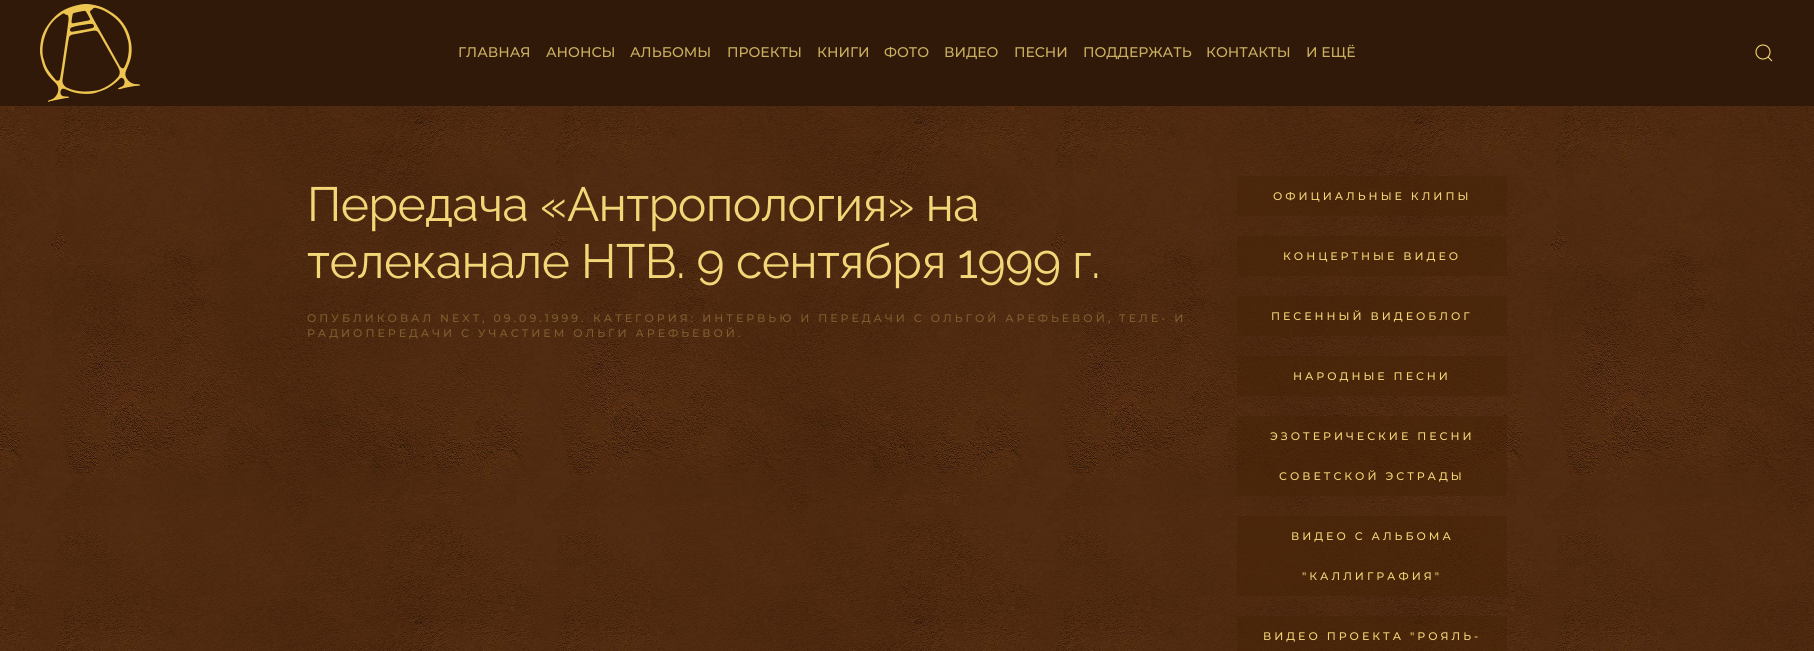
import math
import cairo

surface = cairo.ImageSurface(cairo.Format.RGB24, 1814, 651)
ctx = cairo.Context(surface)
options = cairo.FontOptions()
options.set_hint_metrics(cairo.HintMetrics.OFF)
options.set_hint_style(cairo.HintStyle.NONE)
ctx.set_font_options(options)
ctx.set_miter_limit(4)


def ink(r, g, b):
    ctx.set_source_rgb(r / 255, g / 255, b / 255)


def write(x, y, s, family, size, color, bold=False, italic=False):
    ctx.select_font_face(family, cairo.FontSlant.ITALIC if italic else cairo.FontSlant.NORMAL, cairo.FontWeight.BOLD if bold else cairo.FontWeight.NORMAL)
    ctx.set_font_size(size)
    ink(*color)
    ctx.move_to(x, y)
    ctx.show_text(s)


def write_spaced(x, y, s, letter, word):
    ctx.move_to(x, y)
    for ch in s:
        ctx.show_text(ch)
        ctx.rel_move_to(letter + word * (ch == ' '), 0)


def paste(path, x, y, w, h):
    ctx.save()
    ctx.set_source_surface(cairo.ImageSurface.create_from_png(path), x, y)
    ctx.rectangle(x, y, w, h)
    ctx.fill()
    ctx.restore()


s1 = dict(family="Montserrat Medium", size=14, color=(204, 176, 98))

ink(48, 25, 9)
ctx.paint()
paste("pic1.png", 40, 4, 100, 98)
write(458, 57, "ГЛАВНАЯ", **s1)
write(546, 57, "АНОНСЫ", **s1)
write(630, 57, "АЛЬБОМЫ", **s1)
write(727, 57, "ПРОЕКТЫ", **s1)
write(817, 57, "КНИГИ", **s1)
write(884, 57, "ФОТО", **s1)
write(944, 57, "ВИДЕО", **s1)
write(1014, 57, "ПЕСНИ", **s1)
write(1083, 57, "ПОДДЕРЖАТЬ", **s1)
write(1206, 57, "КОНТАКТЫ", **s1)
write(1306, 57, "И ЕЩЁ", **s1)
ctx.new_path()
ctx.arc(1763, 52, 7, 0, 2 * math.pi)
ink(243, 214, 120)
ctx.set_line_width(1.1)
ctx.stroke()
ctx.new_path()
ctx.move_to(1768, 57)
ctx.line_to(1772, 61)
ctx.close_path()
ctx.stroke()
paste("pic2.png", 0, 106, 1814, 545)
ctx.select_font_face("Raleway")
ctx.set_font_size(48)
write_spaced(307, 221, "Передача «Антропология» на", -0.5, 0)
write_spaced(307, 278, "телеканале НТВ. 9 сентября 1999 г.", -0.5, 0)
ctx.select_font_face("Montserrat Medium")
ctx.set_font_size(11)
ink(127, 93, 46)
write_spaced(307, 322, "ОПУБЛИКОВАЛ", 3, 0)
write_spaced(440, 322, "NEXT", 3, 0)
write_spaced(482, 322, ", 09.09.1999", 3, 0)
write_spaced(581, 322, ".", 3, 0)
write_spaced(593, 322, "КАТЕГОРИЯ: ИНТЕРВЬЮ И ПЕРЕДАЧИ С ОЛЬГОЙ АРЕФЬЕВОЙ", 3, 0)
write_spaced(1108, 322, ",", 3, 0)
write_spaced(1119, 322, "ТЕЛЕ- И", 3, 0)
write_spaced(307, 337, "РАДИОПЕРЕДАЧИ С УЧАСТИЕМ ОЛЬГИ АРЕФЬЕВОЙ.", 3, 0)
ctx.set_source_rgba(0.275, 0.133, 0.031, 0.5)
ctx.rectangle(1237, 176, 270, 40)
ctx.fill()
ink(243, 214, 120)
write_spaced(1273, 200, "ОФИЦИАЛЬНЫЕ КЛИПЫ", 3, 0)
ctx.set_source_rgba(0.275, 0.133, 0.031, 0.5)
ctx.rectangle(1237, 236, 270, 40)
ctx.fill()
ink(243, 214, 120)
write_spaced(1283, 260, "КОНЦЕРТНЫЕ ВИДЕО", 3, 0)
ctx.set_source_rgba(0.275, 0.133, 0.031, 0.5)
ctx.rectangle(1237, 296, 270, 40)
ctx.fill()
ink(243, 214, 120)
write_spaced(1271, 320, "ПЕСЕННЫЙ ВИДЕОБЛОГ", 3, 0)
ctx.set_source_rgba(0.275, 0.133, 0.031, 0.5)
ctx.rectangle(1237, 356, 270, 40)
ctx.fill()
ink(243, 214, 120)
write_spaced(1293, 380, "НАРОДНЫЕ ПЕСНИ", 3, 0)
ctx.set_source_rgba(0.275, 0.133, 0.031, 0.5)
ctx.rectangle(1237, 416, 270, 80)
ctx.fill()
ink(243, 214, 120)
write_spaced(1270, 440, "ЭЗОТЕРИЧЕСКИЕ ПЕСНИ", 3, 0)
write_spaced(1279, 480, "СОВЕТСКОЙ ЭСТРАДЫ", 3, 0)
ctx.set_source_rgba(0.275, 0.133, 0.031, 0.5)
ctx.rectangle(1237, 516, 270, 80)
ctx.fill()
ink(243, 214, 120)
write_spaced(1291, 540, "ВИДЕО С АЛЬБОМА", 3, 0)
write_spaced(1302, 580, "\"КАЛЛИГРАФИЯ\"", 3, 0)
ctx.set_source_rgba(0.275, 0.133, 0.031, 0.5)
ctx.rectangle(1237, 616, 270, 35)
ctx.fill()
ink(243, 214, 120)
write_spaced(1263, 640, "ВИДЕО ПРОЕКТА \"РОЯЛЬ-", 3, 0)
surface.write_to_png("screenshot.png")
